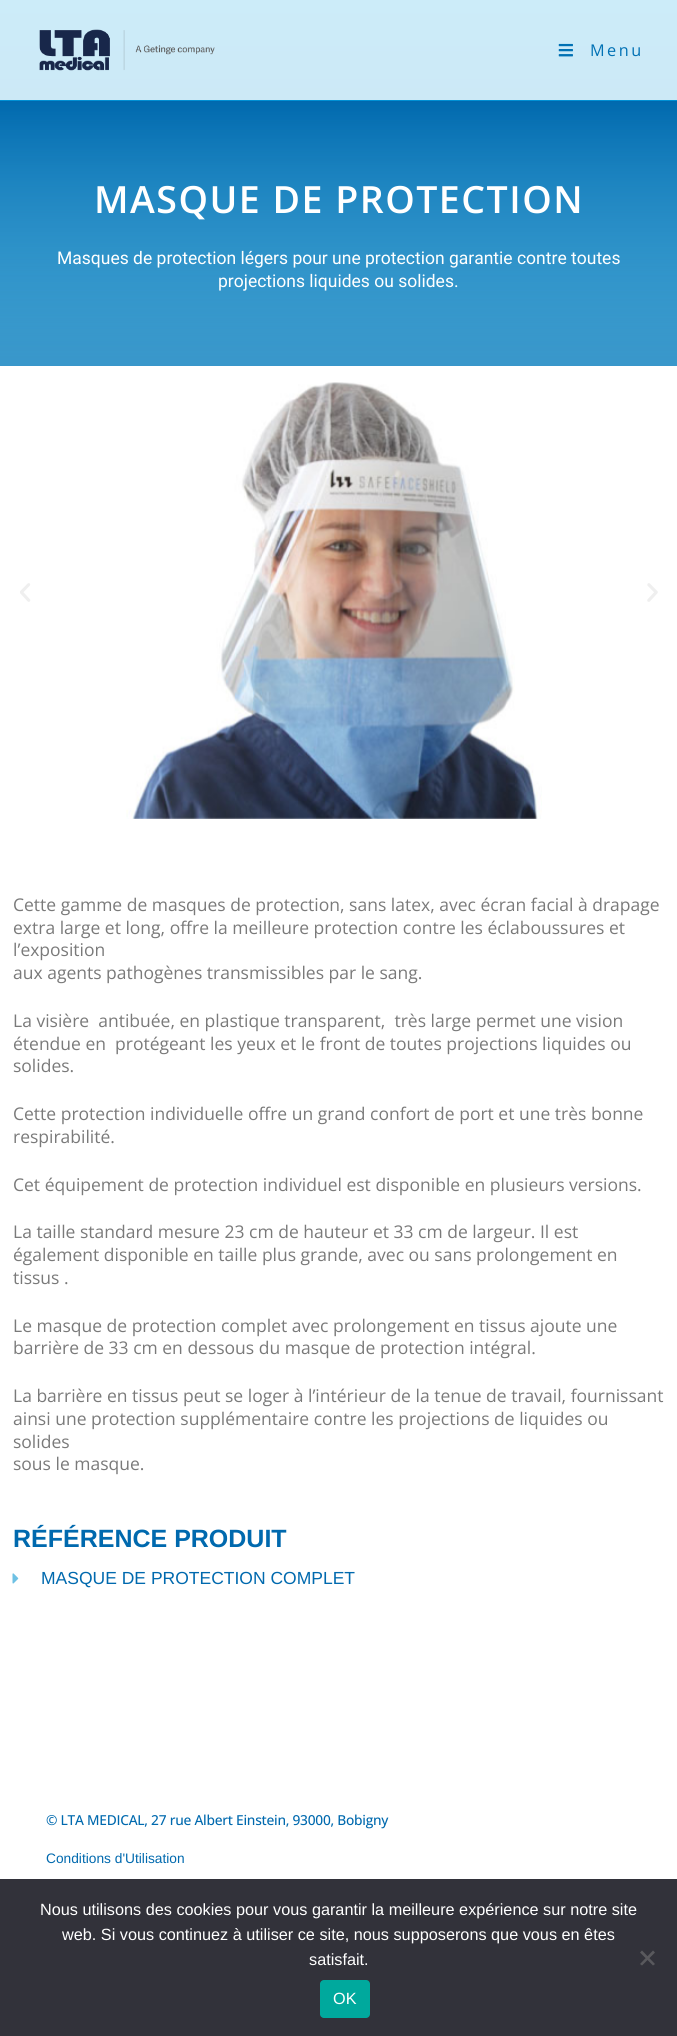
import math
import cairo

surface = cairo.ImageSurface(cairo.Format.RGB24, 677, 2036)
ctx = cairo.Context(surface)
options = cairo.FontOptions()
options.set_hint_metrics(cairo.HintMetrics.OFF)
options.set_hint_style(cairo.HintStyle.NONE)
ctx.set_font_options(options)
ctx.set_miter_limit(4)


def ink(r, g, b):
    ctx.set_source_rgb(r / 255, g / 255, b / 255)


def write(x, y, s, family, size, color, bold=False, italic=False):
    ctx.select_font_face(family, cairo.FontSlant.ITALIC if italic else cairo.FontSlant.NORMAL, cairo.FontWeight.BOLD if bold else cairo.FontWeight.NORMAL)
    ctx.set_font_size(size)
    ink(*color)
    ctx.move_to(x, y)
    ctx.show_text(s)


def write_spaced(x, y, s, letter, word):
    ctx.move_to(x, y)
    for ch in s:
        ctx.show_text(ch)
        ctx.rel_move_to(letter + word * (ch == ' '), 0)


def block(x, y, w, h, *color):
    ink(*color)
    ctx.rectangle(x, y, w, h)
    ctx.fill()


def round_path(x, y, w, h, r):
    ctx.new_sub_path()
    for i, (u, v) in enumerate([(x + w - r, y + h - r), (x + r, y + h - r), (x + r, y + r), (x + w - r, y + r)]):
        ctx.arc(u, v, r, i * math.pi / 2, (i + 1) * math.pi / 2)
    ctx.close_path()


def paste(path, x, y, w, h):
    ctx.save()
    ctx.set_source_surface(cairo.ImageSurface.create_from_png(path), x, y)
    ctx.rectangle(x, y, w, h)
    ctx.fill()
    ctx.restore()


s1 = dict(family="Roboto", size=17.5, color=(255, 255, 255))
s2 = dict(family="Open Sans", size=17.5, color=(122, 122, 122))
s3 = dict(family="Liberation Sans", size=25, color=(0, 105, 174), bold=True)
s4 = dict(family="Liberation Sans", size=17.5, color=(0, 105, 174))
s5 = dict(family="Liberation Sans", size=13.75, color=(0, 105, 174))
s6 = dict(family="Liberation Sans", size=16.25, color=(255, 255, 255))

ink(255, 255, 255)
ctx.paint()
gradient = cairo.LinearGradient(339, 0, 339, 366)
gradient.add_color_stop_rgba(0, 0.8, 0.925, 0.976, 1)
gradient.add_color_stop_rgba(1, 0.8, 0.882, 0.937, 1)
ctx.set_source(gradient)
ctx.rectangle(0, 0, 677, 100)
ctx.fill()
paste("pic1.png", 39, 29, 176, 42)
paste("pic2.png", 558, 43, 15, 14)
ctx.select_font_face("Open Sans")
ctx.set_font_size(16.25)
ink(0, 113, 180)
write_spaced(590, 56, "Menu", 2.5, 0)
gradient = cairo.LinearGradient(339, 0, 339, 366)
gradient.add_color_stop_rgba(0, 0, 0.62, 0.886, 1)
gradient.add_color_stop_rgba(1, 0, 0.412, 0.682, 1)
ctx.set_source(gradient)
ctx.rectangle(0, 100, 677, 266)
ctx.fill()
gradient = cairo.LinearGradient(339, 101, 339, 366)
gradient.add_color_stop_rgba(0, 0, 0.412, 0.682, 1)
gradient.add_color_stop_rgba(1, 0.431, 0.757, 0.894, 0.52)
ctx.set_source(gradient)
ctx.rectangle(0, 101, 677, 265)
ctx.fill()
ctx.select_font_face("Open Sans SemiBold")
ctx.set_font_size(37.5)
ink(255, 255, 255)
write_spaced(94, 213, "MASQUE DE PROTECTION", 1.5, 0)
write(57, 264, "Masques de protection légers pour une protection garantie contre toutes", **s1)
write(218, 287, "projections liquides ou solides.", **s1)
paste("pic3.png", 20, 583, 11, 19)
paste("pic4.png", 126, 382, 416, 437)
paste("pic5.png", 647, 583, 11, 19)
write(13, 911, "Cette gamme de masques de protection, sans latex, avec écran facial à drapage", **s2)
write(13, 934, "extra large et long, offre la meilleure protection contre les éclaboussures et", **s2)
write(13, 956, "l’exposition", **s2)
write(13, 979, "aux agents pathogènes transmissibles par le sang.", **s2)
write(13, 1027, "La visière  antibuée, en plastique transparent,  très large permet une vision", **s2)
write(13, 1050, "étendue en  protégeant les yeux et le front de toutes projections liquides ou", **s2)
write(13, 1072, "solides.", **s2)
write(13, 1120, "Cette protection individuelle offre un grand confort de port et une très bonne", **s2)
write(13, 1143, "respirabilité.", **s2)
write(13, 1191, "Cet équipement de protection individuel est disponible en plusieurs versions.", **s2)
write(13, 1238, "La taille standard mesure 23 cm de hauteur et 33 cm de largeur. Il est", **s2)
write(13, 1261, "également disponible en taille plus grande, avec ou sans prolongement en", **s2)
write(13, 1284, "tissus .", **s2)
write(13, 1332, "Le masque de protection complet avec prolongement en tissus ajoute une", **s2)
write(13, 1354, "barrière de 33 cm en dessous du masque de protection intégral.", **s2)
write(13, 1402, "La barrière en tissus peut se loger à l’intérieur de la tenue de travail, fournissant", **s2)
write(13, 1425, "ainsi une protection supplémentaire contre les projections de liquides ou", **s2)
write(13, 1448, "solides", **s2)
write(13, 1470, "sous le masque.", **s2)
write(13, 1547, "RÉFÉRENCE PRODUIT", **s3)
paste("pic6.png", 12, 1573, 7, 11)
write(41, 1584, "MASQUE DE PROTECTION COMPLET", **s4)
ctx.select_font_face("Open Sans Medium")
ctx.set_font_size(13.75)
write_spaced(46, 1825, "© LTA MEDICAL, 27 rue Albert Einstein, 93000, Bobigny", -0.25, 0)
write(46, 1863, "Conditions d'Utilisation", **s5)
block(0, 1879, 677, 157, 50, 50, 58)
write(40, 1915, "Nous utilisons des cookies pour vous garantir la meilleure expérience sur notre site", **s6)
write(62, 1940, "web. Si vous continuez à utiliser ce site, nous supposerons que vous en êtes", **s6)
write(309, 1965, "satisfait.", **s6)
ink(89, 89, 93)
ctx.new_path()
ctx.move_to(653, 1950.5)
ctx.line_to(655, 1952.5)
ctx.line_to(642, 1965.5)
ctx.line_to(640, 1964)
ctx.close_path()
ctx.fill()
ctx.new_path()
ctx.move_to(640, 1952.5)
ctx.line_to(642, 1950.5)
ctx.line_to(655, 1964)
ctx.line_to(653, 1965.5)
ctx.close_path()
ctx.fill()
ink(0, 169, 157)
round_path(320, 1980, 50, 38, 4)
ctx.fill()
write(333, 2004, "OK", **s6)
surface.write_to_png("screenshot.png")
